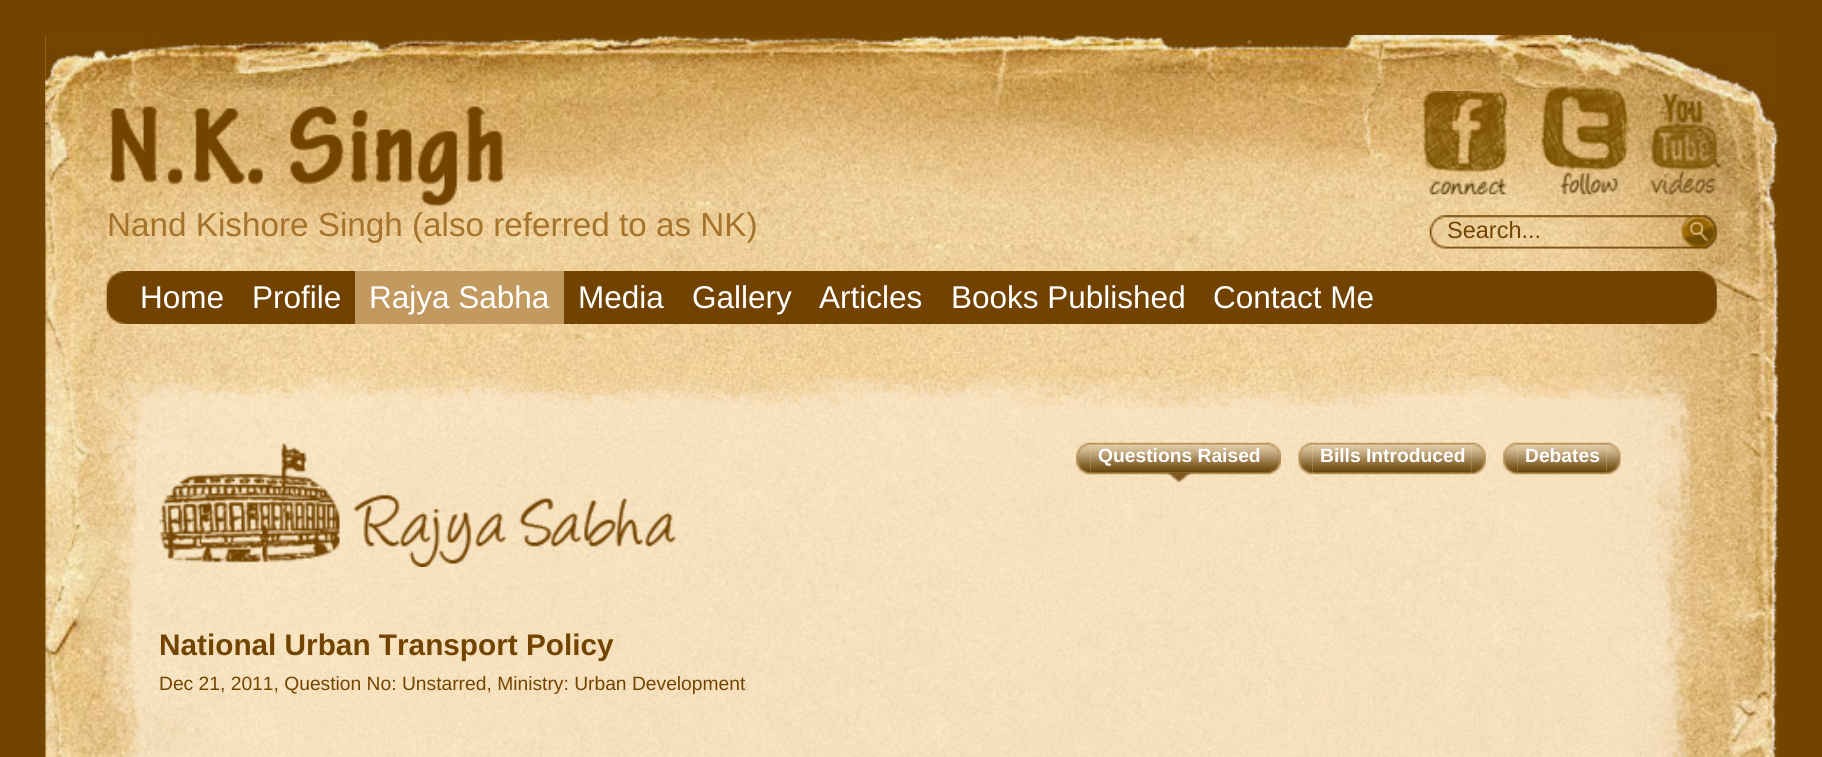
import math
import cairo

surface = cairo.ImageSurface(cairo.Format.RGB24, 1822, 757)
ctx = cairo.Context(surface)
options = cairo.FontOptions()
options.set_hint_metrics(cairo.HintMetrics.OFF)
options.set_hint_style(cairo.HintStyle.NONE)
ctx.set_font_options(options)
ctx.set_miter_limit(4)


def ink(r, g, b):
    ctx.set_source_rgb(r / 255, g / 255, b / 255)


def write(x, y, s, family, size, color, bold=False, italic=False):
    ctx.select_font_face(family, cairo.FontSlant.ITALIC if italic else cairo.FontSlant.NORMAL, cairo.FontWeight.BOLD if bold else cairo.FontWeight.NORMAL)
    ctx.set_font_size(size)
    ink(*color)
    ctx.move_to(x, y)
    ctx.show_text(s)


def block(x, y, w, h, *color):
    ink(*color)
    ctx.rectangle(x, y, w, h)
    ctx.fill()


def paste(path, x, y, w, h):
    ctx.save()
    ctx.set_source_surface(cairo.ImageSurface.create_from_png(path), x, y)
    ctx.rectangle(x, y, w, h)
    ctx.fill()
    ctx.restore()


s1 = dict(family="Liberation Sans", size=33.25, color=(165, 115, 43))
s2 = dict(family="Liberation Sans", size=23.5, color=(115, 68, 0))
s3 = dict(family="Liberation Sans", size=31.5, color=(255, 255, 255))
s4 = dict(family="Liberation Sans", size=19.25, color=(255, 255, 255), bold=True)
s5 = dict(family="Liberation Sans", size=29.75, color=(115, 68, 0), bold=True)
s6 = dict(family="Liberation Sans", size=19.25, color=(115, 68, 0))

ink(115, 68, 0)
ctx.paint()
paste("pic1.png", 45, 35, 1733, 722)
paste("pic2.png", 45, 35, 1733, 195)
paste("pic3.png", 109, 106, 396, 101)
write(107, 236, "Nand Kishore Singh (also referred to as NK)", **s1)
paste("pic4.png", 1422, 91, 85, 104)
paste("pic5.png", 1541, 87, 87, 108)
paste("pic6.png", 1650, 92, 67, 103)
paste("pic7.png", 1429, 215, 253, 34)
write(1447, 238, "Search...", **s2)
paste("pic8.png", 1681, 215, 36, 34)
paste("pic9.png", 106, 271, 20, 53)
block(126, 271, 1572, 53, 114, 67, 0)
write(140, 308, "Home", **s3)
write(252, 308, "Profile", **s3)
block(355, 271, 209, 53, 194, 153, 94)
write(369, 308, "Rajya Sabha", **s3)
write(578, 308, "Media", **s3)
write(692, 308, "Gallery", **s3)
write(819, 308, "Articles", **s3)
write(951, 308, "Books Published", **s3)
write(1213, 308, "Contact Me", **s3)
paste("pic10.png", 1698, 271, 19, 53)
paste("pic11.png", 106, 376, 1585, 64)
paste("pic12.png", 106, 439, 1585, 318)
paste("pic13.png", 159, 442, 517, 125)
paste("pic15.png", 1090, 442, 177, 33)
paste("pic14.png", 1076, 442, 15, 33)
write(1098, 462, "Questions Raised", **s4)
paste("pic16.png", 1267, 442, 14, 33)
paste("pic17.png", 1167, 472, 23, 11)
paste("pic19.png", 1312, 442, 160, 33)
paste("pic18.png", 1298, 442, 15, 33)
write(1320, 462, "Bills Introduced", **s4)
paste("pic20.png", 1471, 442, 15, 33)
paste("pic22.png", 1517, 442, 90, 33)
paste("pic21.png", 1503, 442, 15, 33)
write(1525, 462, "Debates", **s4)
paste("pic23.png", 1606, 442, 15, 33)
write(159, 655, "National Urban Transport Policy", **s5)
write(159, 690, "Dec 21, 2011, Question No: Unstarred, Ministry: Urban Development", **s6)
surface.write_to_png("screenshot.png")
